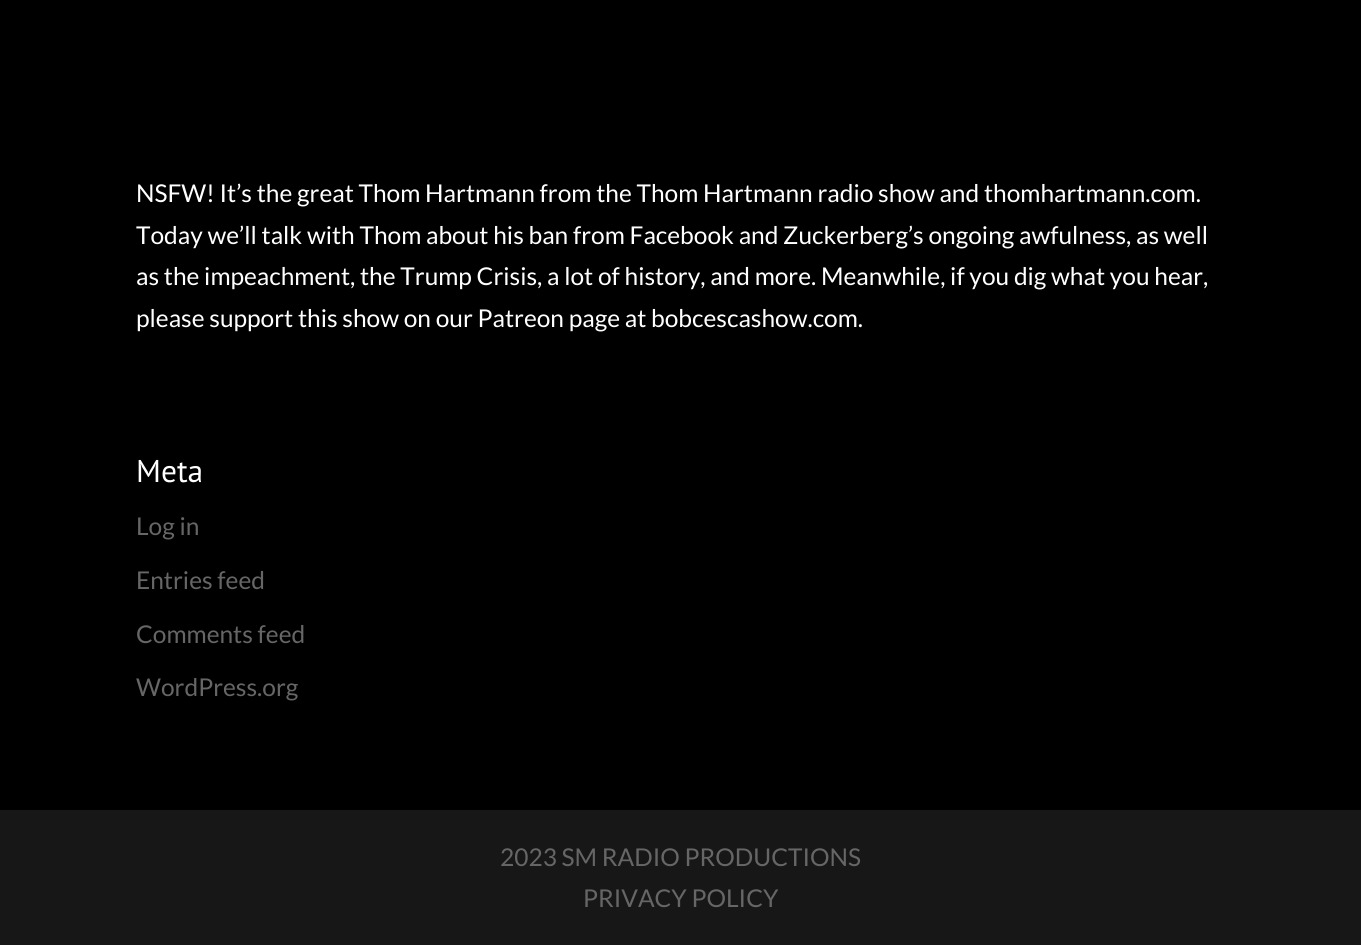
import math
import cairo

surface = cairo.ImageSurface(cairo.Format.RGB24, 1361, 945)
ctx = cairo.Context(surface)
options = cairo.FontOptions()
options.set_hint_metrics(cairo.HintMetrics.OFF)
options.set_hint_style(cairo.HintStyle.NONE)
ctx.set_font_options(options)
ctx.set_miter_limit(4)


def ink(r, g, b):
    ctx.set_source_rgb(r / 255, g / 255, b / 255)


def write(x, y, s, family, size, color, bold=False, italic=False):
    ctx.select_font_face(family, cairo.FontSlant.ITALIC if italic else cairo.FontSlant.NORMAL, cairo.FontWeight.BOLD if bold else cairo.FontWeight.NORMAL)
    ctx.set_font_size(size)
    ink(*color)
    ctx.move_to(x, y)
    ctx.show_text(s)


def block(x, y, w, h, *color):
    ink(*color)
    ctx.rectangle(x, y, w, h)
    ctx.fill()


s1 = dict(family="Lato", size=24.5, color=(255, 255, 255))
s2 = dict(family="PT Sans", size=31.5, color=(255, 255, 255))
s3 = dict(family="Lato", size=24.5, color=(102, 102, 102))

ink(0, 0, 0)
ctx.paint()
write(136, 202, "NSFW! It’s the great Thom Hartmann from the Thom Hartmann radio show and thomhartmann.com.", **s1)
write(136, 244, "Today we’ll talk with Thom about his ban from Facebook and Zuckerberg’s ongoing awfulness, as well", **s1)
write(136, 285, "as the impeachment, the Trump Crisis, a lot of history, and more. Meanwhile, if you dig what you hear,", **s1)
write(136, 327, "please support this show on our Patreon page at bobcescashow.com.", **s1)
write(136, 482, "Meta", **s2)
write(136, 535, "Log in", **s3)
write(136, 589, "Entries feed", **s3)
write(136, 643, "Comments feed", **s3)
write(136, 696, "WordPress.org", **s3)
block(0, 810, 1361, 135, 23, 23, 23)
write(500, 866, "2023 SM RADIO PRODUCTIONS", **s3)
write(583, 907, "PRIVACY POLICY", **s3)
surface.write_to_png("screenshot.png")
